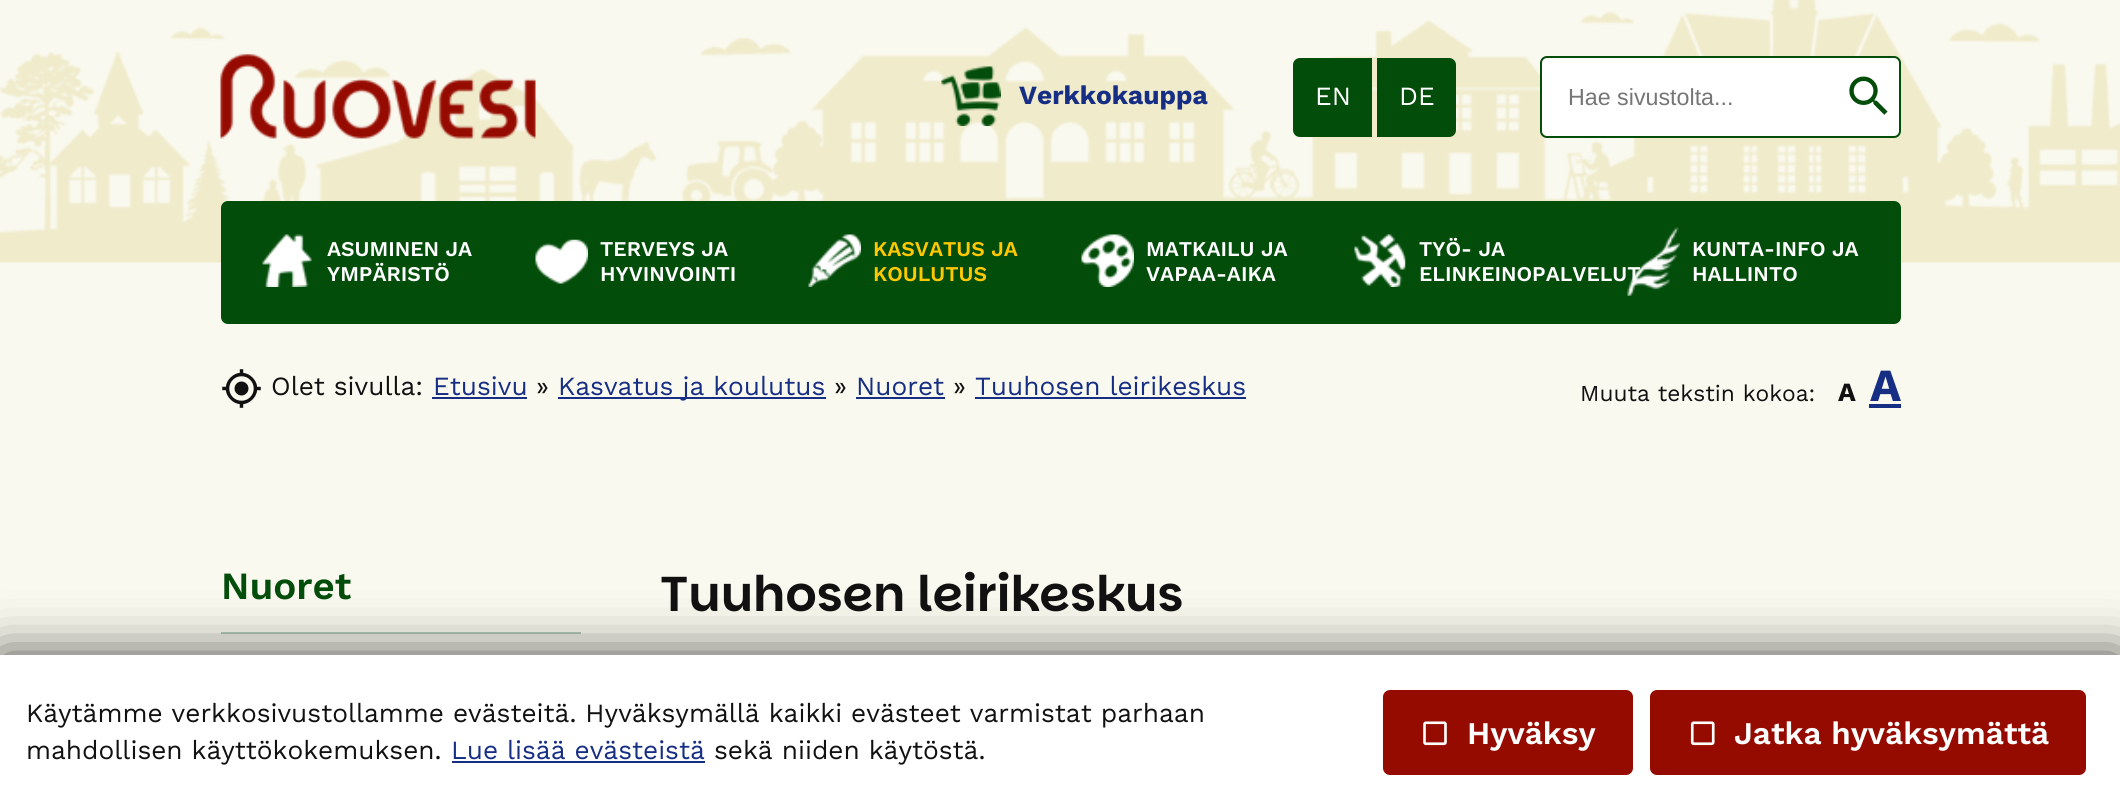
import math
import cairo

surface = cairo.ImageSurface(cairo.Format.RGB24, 2120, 809)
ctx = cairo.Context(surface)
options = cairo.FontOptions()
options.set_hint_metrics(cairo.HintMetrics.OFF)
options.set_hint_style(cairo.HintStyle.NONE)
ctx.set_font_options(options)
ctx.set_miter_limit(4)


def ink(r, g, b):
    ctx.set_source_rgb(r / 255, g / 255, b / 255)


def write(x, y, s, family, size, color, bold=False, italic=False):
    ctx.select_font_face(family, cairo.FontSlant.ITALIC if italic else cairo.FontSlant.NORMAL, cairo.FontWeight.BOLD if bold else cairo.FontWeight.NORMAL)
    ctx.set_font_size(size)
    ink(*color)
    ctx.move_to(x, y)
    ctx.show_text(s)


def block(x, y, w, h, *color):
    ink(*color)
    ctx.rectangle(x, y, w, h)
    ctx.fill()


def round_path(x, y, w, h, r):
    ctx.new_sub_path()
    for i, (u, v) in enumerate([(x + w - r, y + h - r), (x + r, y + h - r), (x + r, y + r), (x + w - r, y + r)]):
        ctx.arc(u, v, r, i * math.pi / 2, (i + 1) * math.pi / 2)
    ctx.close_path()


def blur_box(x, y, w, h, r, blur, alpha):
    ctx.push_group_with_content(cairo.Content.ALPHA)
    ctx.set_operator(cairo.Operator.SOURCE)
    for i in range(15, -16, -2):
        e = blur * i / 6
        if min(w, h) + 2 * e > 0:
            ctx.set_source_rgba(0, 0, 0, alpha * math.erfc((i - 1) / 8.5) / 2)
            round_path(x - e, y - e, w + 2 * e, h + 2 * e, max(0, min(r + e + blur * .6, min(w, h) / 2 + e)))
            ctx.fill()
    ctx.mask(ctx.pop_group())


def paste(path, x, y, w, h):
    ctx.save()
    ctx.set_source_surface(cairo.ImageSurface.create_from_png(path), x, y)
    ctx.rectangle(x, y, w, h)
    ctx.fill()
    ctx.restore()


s1 = dict(family="Work Sans", size=26.25, color=(23, 46, 133), bold=True)
s2 = dict(family="Work Sans", size=26.25, color=(255, 255, 255))
s3 = dict(family="Liberation Sans", size=23.25, color=(118, 118, 118))
s4 = dict(family="Work Sans SemiBold", size=21, color=(255, 255, 255))
s5 = dict(family="Work Sans SemiBold", size=21, color=(255, 200, 0))
s6 = dict(family="Work Sans", size=26.25, color=(17, 17, 17))
s7 = dict(family="Work Sans", size=26.25, color=(23, 46, 133))
s8 = dict(family="Work Sans", size=22.75, color=(17, 17, 17))
s9 = dict(family="Work Sans", size=26.25, color=(17, 17, 17), bold=True)
s10 = dict(family="Work Sans", size=46, color=(23, 46, 133), bold=True)
s11 = dict(family="Work Sans SemiBold", size=38.5, color=(2, 77, 10))
s12 = dict(family="Parkinsans SemiBold", size=49, color=(17, 17, 17))
s13 = dict(family="Work Sans SemiBold", size=31.5, color=(255, 255, 255))

ink(250, 249, 239)
ctx.paint()
paste("pic1.png", 0, 0, 2120, 263)
paste("pic2.png", 220, 53, 316, 86)
paste("pic3.png", 941, 66, 60, 60)
write(1019, 104, "Verkkokauppa", **s1)
ink(2, 77, 10)
ctx.new_path()
ctx.move_to(1300, 58)
ctx.line_to(1372, 58)
ctx.line_to(1372, 137)
ctx.line_to(1300, 137)
ctx.curve_to(1296, 137, 1293, 134, 1293, 130)
ctx.line_to(1293, 65)
ctx.curve_to(1293, 61, 1296, 58, 1300, 58)
ctx.close_path()
ctx.fill()
write(1315, 105, "EN", **s2)
ink(2, 77, 10)
ctx.new_path()
ctx.move_to(1377, 58)
ctx.line_to(1449, 58)
ctx.curve_to(1453, 58, 1456, 61, 1456, 65)
ctx.line_to(1456, 130)
ctx.curve_to(1456, 134, 1453, 137, 1449, 137)
ctx.line_to(1377, 137)
ctx.close_path()
ctx.fill()
write(1399, 105, "DE", **s2)
round_path(1541, 57, 359, 80, 6)
ctx.fill_preserve()
ink(2, 77, 10)
ctx.stroke()
write(1568, 105, "Hae sivustolta...", **s3)
paste("pic4.png", 1849, 76, 39, 39)
ink(2, 77, 10)
round_path(221, 201, 1680, 123, 7)
ctx.fill()
paste("pic5.png", 262, 234, 50, 53)
write(327, 256, "ASUMINEN JA", **s4)
write(327, 281, "YMPÄRISTÖ", **s4)
paste("pic6.png", 535, 239, 53, 45)
write(600, 256, "TERVEYS JA", **s4)
write(600, 281, "HYVINVOINTI", **s4)
paste("pic7.png", 808, 234, 53, 53)
write(873, 256, "KASVATUS JA", **s5)
write(873, 281, "KOULUTUS", **s5)
paste("pic8.png", 1081, 234, 53, 53)
write(1146, 256, "MATKAILU JA", **s4)
write(1146, 281, "VAPAA-AIKA", **s4)
paste("pic9.png", 1354, 234, 52, 53)
write(1419, 256, "TYÖ- JA", **s4)
write(1419, 281, "ELINKEINOPALVELUT", **s4)
paste("pic10.png", 1627, 227, 53, 69)
write(1692, 256, "KUNTA-INFO JA", **s4)
write(1692, 281, "HALLINTO", **s4)
paste("pic11.png", 222, 369, 39, 39)
write(271, 395, "Olet sivulla:", **s6)
write(433, 395, "Etusivu", **s7)
block(432, 397, 95, 2, 23, 46, 133)
write(536, 395, "»", **s6)
block(558, 397, 268, 2, 23, 46, 133)
write(558, 395, "Kasvatus ja koulutus", **s7)
write(834, 395, "»", **s6)
write(856, 395, "Nuoret", **s7)
block(856, 397, 89, 2, 23, 46, 133)
write(953, 395, "»", **s6)
write(975, 395, "Tuuhosen leirikeskus", **s7)
block(975, 397, 271, 2, 23, 46, 133)
write(1580, 401, "Muuta tekstin kokoa:", **s8)
write(1838, 401, "A", **s9)
write(1870, 401, "A", **s10)
block(1869, 404, 32, 4, 23, 46, 133)
write(221, 599, "Nuoret", **s11)
block(221, 632, 360, 2, 179, 202, 182)
write(660, 611, "Tuuhosen leirikeskus", **s12)
ink(0, 0, 0)
blur_box(0, 655, 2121, 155, 0, 26, 0.7)
block(0, 655, 2120, 154, 255, 255, 255)
write(26, 722, "Käytämme verkkosivustollamme evästeitä. Hyväksymällä kaikki evästeet varmistat parhaan", **s6)
write(26, 759, "mahdollisen käyttökokemuksen.", **s6)
write(451, 759, "Lue lisää evästeistä", **s7)
block(452, 761, 253, 2, 23, 46, 133)
write(714, 759, "sekä niiden käytöstä.", **s6)
ink(150, 11, 0)
round_path(1384, 691, 248, 83, 6)
ctx.fill_preserve()
ctx.stroke()
paste("pic12.png", 1423, 721, 24, 25)
write(1467, 744, "Hyväksy", **s13)
ink(150, 11, 0)
round_path(1651, 691, 434, 83, 6)
ctx.fill_preserve()
ctx.stroke()
paste("pic13.png", 1690, 721, 25, 25)
write(1734, 744, "Jatka hyväksymättä", **s13)
surface.write_to_png("screenshot.png")
